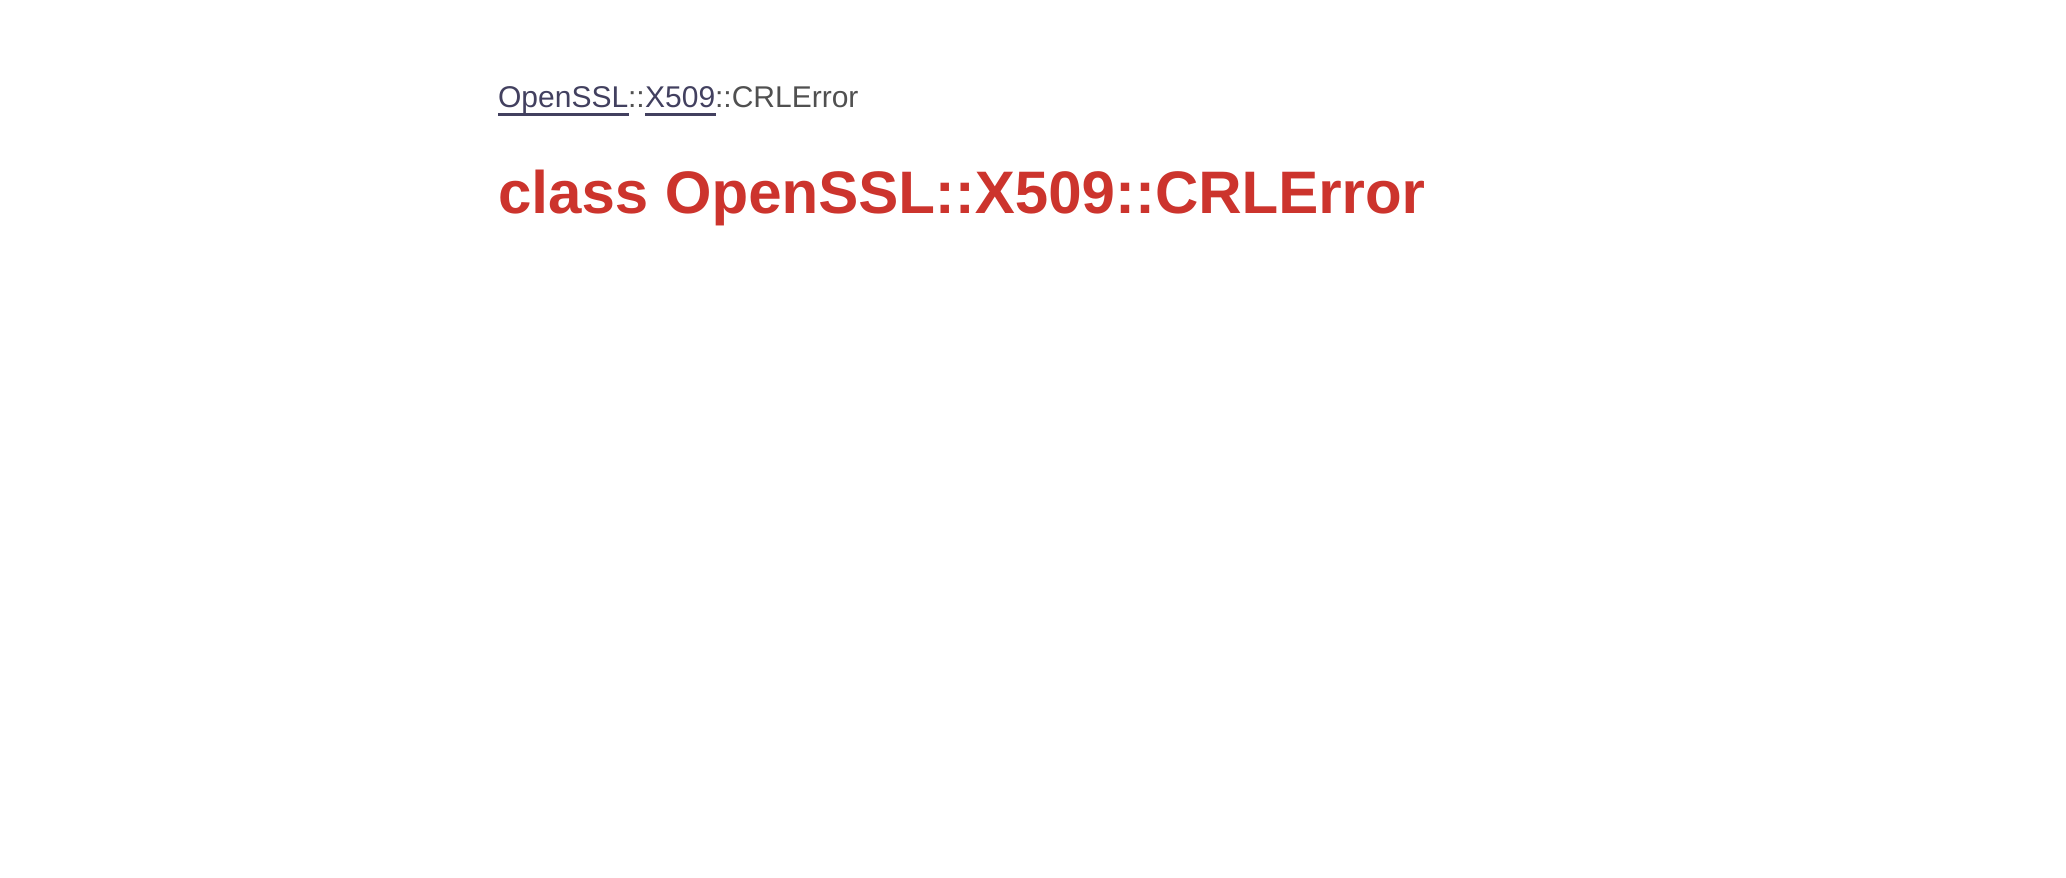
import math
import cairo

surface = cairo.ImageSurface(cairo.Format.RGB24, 2066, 878)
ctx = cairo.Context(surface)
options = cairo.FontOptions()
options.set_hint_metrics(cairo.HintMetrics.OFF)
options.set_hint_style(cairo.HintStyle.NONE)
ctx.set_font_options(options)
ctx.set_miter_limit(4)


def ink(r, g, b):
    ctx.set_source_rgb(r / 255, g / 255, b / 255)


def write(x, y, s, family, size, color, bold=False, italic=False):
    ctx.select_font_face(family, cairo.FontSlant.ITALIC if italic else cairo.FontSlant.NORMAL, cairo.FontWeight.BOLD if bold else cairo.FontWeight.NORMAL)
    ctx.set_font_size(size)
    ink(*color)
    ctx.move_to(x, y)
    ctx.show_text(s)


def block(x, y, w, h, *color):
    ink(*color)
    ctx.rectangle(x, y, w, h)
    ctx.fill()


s1 = dict(family="Liberation Sans", size=30, color=(66, 64, 95))
s2 = dict(family="Liberation Sans", size=30, color=(80, 80, 80))
s3 = dict(family="Liberation Sans", size=60, color=(204, 52, 45), bold=True)

ink(255, 255, 255)
ctx.paint()
block(498, 113, 131, 3, 66, 64, 95)
write(498, 107, "OpenSSL", **s1)
write(628, 107, "::", **s2)
write(645, 107, "X509", **s1)
block(645, 113, 71, 3, 66, 64, 95)
write(715, 107, "::CRLError", **s2)
write(498, 213, "class OpenSSL::X509::CRLError", **s3)
surface.write_to_png("screenshot.png")
